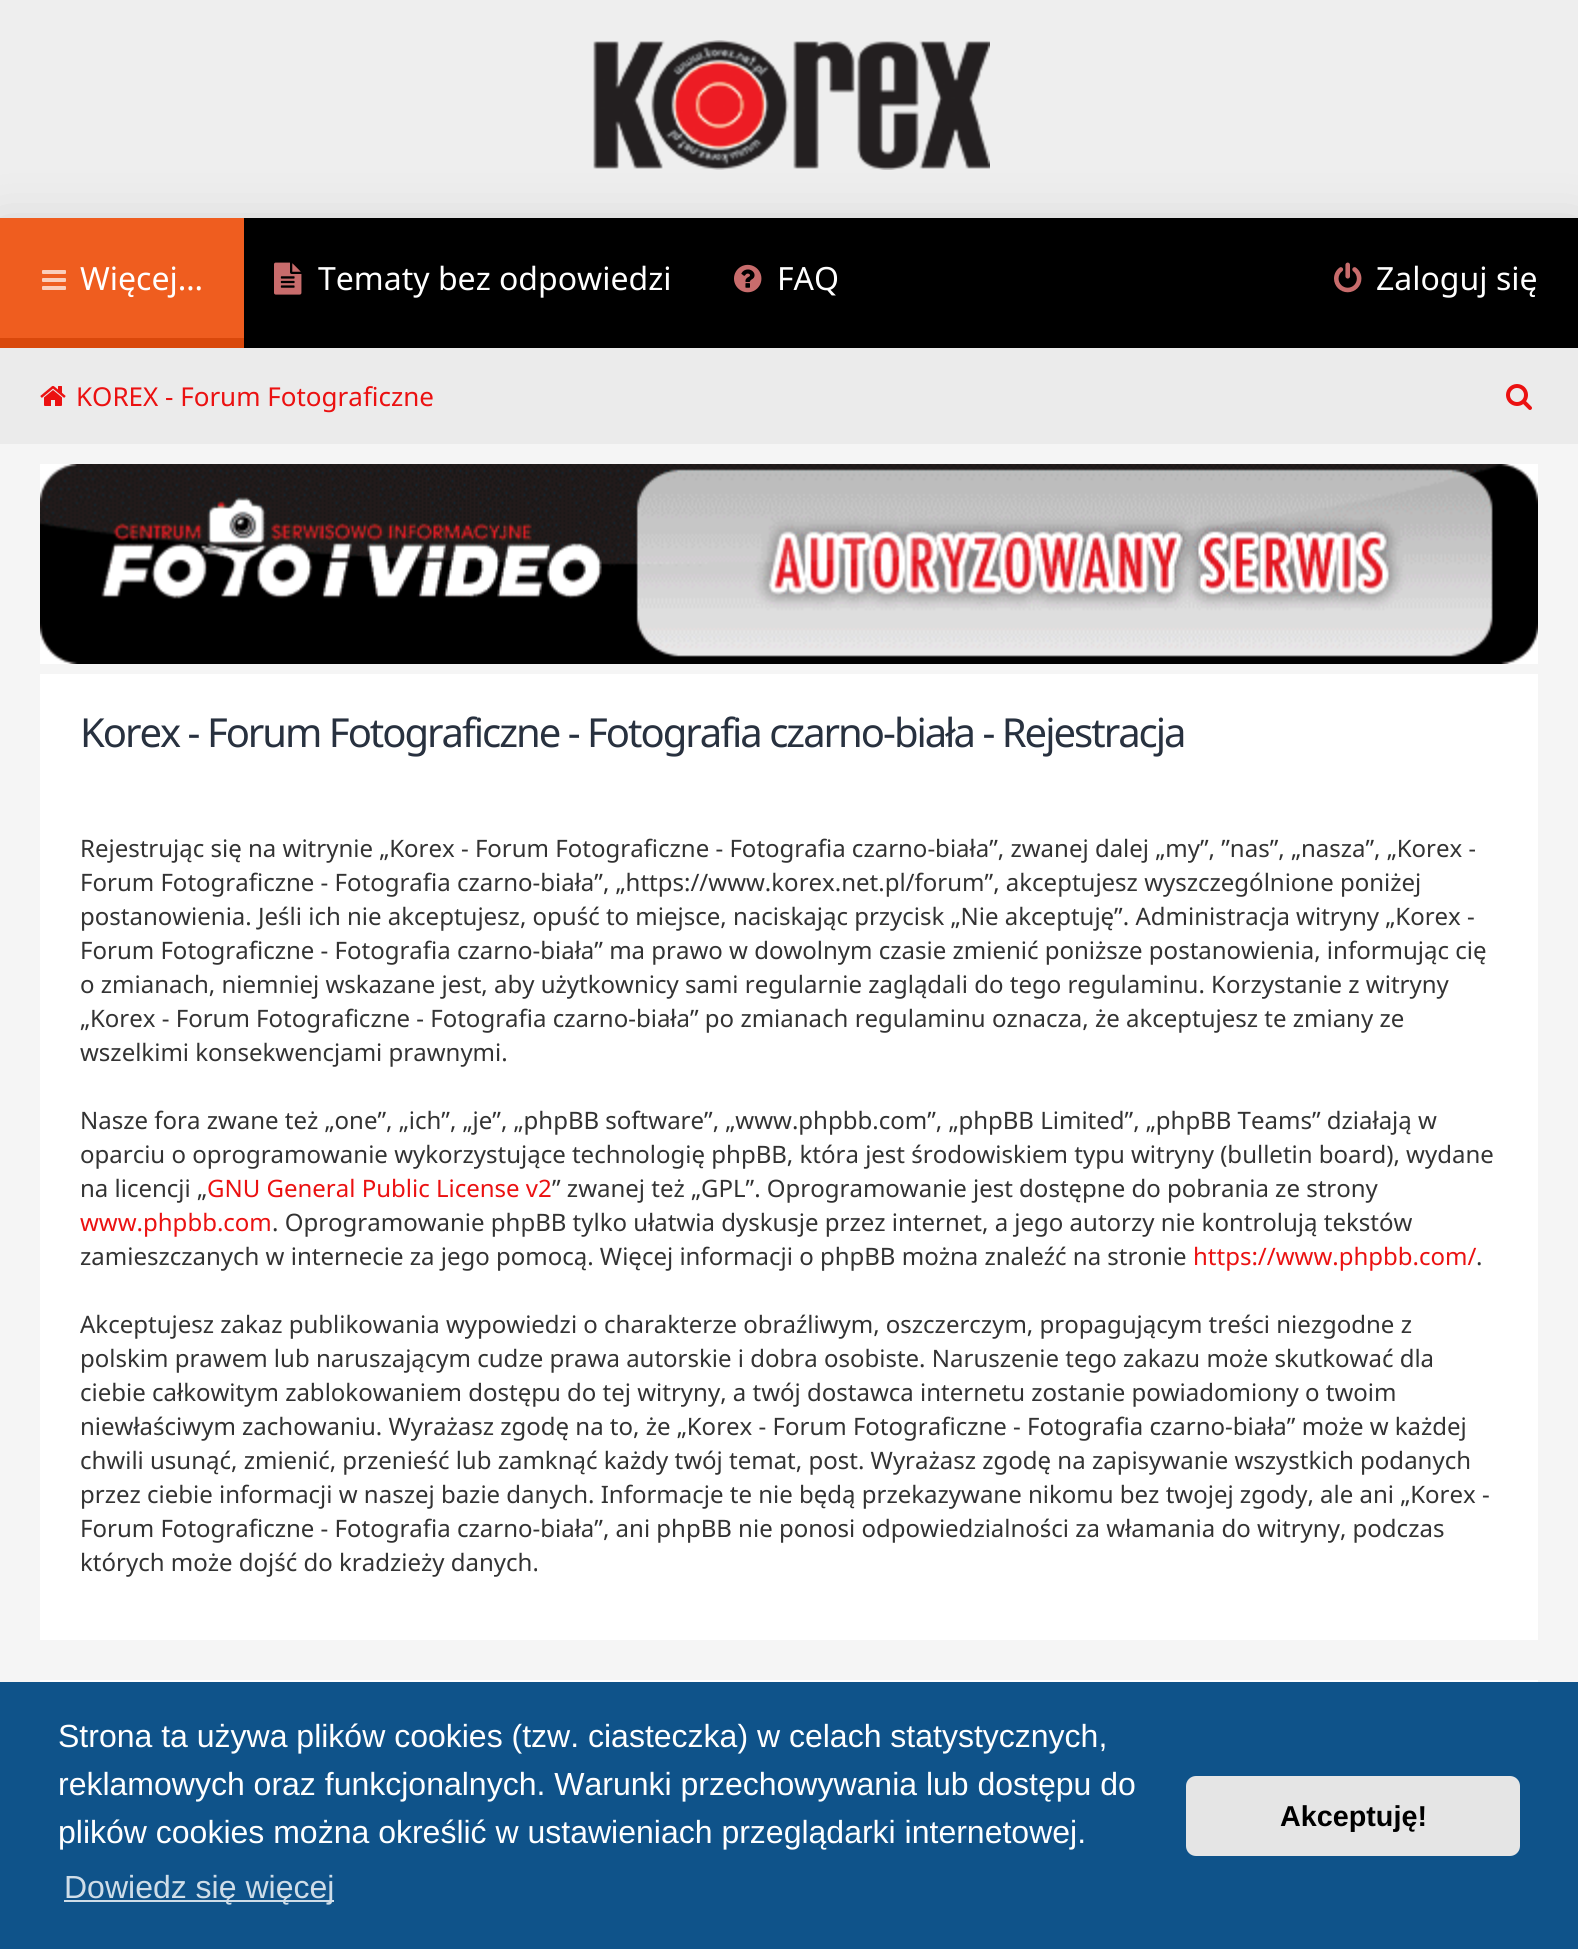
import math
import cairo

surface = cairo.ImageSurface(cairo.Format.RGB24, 1578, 1949)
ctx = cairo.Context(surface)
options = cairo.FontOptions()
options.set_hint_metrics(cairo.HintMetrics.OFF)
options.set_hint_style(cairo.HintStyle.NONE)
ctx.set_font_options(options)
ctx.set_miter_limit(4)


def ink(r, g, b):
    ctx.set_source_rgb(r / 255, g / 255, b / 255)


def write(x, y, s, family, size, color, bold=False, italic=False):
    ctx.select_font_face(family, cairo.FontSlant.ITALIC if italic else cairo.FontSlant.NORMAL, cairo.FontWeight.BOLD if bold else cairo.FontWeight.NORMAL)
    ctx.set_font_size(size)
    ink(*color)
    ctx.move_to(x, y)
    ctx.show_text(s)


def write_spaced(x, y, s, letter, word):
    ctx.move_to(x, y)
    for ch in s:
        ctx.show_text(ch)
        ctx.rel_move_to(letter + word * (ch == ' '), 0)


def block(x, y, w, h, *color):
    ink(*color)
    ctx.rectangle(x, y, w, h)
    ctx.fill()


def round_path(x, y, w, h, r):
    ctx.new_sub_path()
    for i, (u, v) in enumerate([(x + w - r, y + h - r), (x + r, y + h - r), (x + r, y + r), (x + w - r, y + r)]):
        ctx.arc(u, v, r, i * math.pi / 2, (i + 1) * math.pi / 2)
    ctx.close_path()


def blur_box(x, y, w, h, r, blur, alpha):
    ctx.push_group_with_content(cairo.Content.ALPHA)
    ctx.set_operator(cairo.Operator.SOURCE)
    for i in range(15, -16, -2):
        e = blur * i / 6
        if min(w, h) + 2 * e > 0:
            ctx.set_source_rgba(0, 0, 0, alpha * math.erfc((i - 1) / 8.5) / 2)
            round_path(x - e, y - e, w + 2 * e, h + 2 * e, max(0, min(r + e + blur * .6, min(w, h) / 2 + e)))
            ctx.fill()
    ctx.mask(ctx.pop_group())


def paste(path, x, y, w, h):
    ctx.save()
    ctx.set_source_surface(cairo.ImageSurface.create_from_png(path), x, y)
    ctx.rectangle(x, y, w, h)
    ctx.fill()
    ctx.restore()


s1 = dict(family="Noto Sans", size=32, color=(255, 255, 255))
s2 = dict(family="Noto Sans", size=26, color=(235, 17, 17))
s3 = dict(family="Noto Sans", size=24, color=(51, 51, 51))
s4 = dict(family="Noto Sans", size=24, color=(235, 17, 17))
s5 = dict(family="Liberation Sans", size=32, color=(255, 255, 255))
s6 = dict(family="Liberation Sans", size=32, color=(207, 221, 232))
s7 = dict(family="Liberation Sans", size=28.75, color=(0, 0, 0), bold=True)

ink(238, 238, 238)
ctx.paint()
ink(0, 0, 0)
blur_box(0, 238, 1578, 226, 0, 30, 0.2)
paste("pic1.png", 593, 40, 397, 130)
block(244, 218, 1334, 130, 0, 0, 0)
block(0, 218, 244, 120, 239, 93, 31)
block(0, 338, 244, 10, 217, 72, 11)
paste("pic2.png", 42, 270, 24, 20)
write(80, 290, "Więcej…", **s1)
paste("pic3.png", 274, 262, 28, 33)
write(318, 290, "Tematy bez odpowiedzi", **s1)
paste("pic4.png", 734, 264, 28, 29)
write(777, 290, "FAQ", **s1)
paste("pic5.png", 1334, 262, 28, 31)
write(1376, 290, "Zaloguj się", **s1)
block(0, 348, 1578, 96, 235, 235, 235)
paste("pic6.png", 40, 386, 26, 20)
write(76, 406, "KOREX - Forum Fotograficzne", **s2)
paste("pic7.png", 1506, 384, 26, 26)
block(0, 444, 1578, 1238, 245, 245, 245)
paste("pic8.png", 40, 464, 1498, 200)
block(40, 674, 1498, 966, 255, 255, 255)
ctx.set_font_size(40)
ink(40, 49, 63)
write_spaced(80, 747, "Korex - Forum Fotograficzne - Fotografia czarno-biała - Rejestracja", -2, 0)
write(80, 857, "Rejestrując się na witrynie „Korex - Forum Fotograficzne - Fotografia czarno-biała”, zwanej dalej „my”, ”nas”, „nasza”, „Korex -", **s3)
write(80, 891, "Forum Fotograficzne - Fotografia czarno-biała”, „https://www.korex.net.pl/forum”, akceptujesz wyszczególnione poniżej", **s3)
write(80, 925, "postanowienia. Jeśli ich nie akceptujesz, opuść to miejsce, naciskając przycisk „Nie akceptuję”. Administracja witryny „Korex -", **s3)
write(80, 959, "Forum Fotograficzne - Fotografia czarno-biała” ma prawo w dowolnym czasie zmienić poniższe postanowienia, informując cię", **s3)
write(80, 993, "o zmianach, niemniej wskazane jest, aby użytkownicy sami regularnie zaglądali do tego regulaminu. Korzystanie z witryny", **s3)
write(80, 1027, "„Korex - Forum Fotograficzne - Fotografia czarno-biała” po zmianach regulaminu oznacza, że akceptujesz te zmiany ze", **s3)
write(80, 1061, "wszelkimi konsekwencjami prawnymi.", **s3)
write(80, 1129, "Nasze fora zwane też „one”, „ich”, „je”, „phpBB software”, „www.phpbb.com”, „phpBB Limited”, „phpBB Teams” działają w", **s3)
write(80, 1163, "oparciu o oprogramowanie wykorzystujące technologię phpBB, która jest środowiskiem typu witryny (bulletin board), wydane", **s3)
write(80, 1197, "na licencji „", **s3)
write(207, 1197, "GNU General Public License v2", **s4)
write(552, 1197, "” zwanej też „GPL”. Oprogramowanie jest dostępne do pobrania ze strony", **s3)
write(80, 1231, "www.phpbb.com", **s4)
write(272, 1231, ". Oprogramowanie phpBB tylko ułatwia dyskusje przez internet, a jego autorzy nie kontrolują tekstów", **s3)
write(80, 1265, "zamieszczanych w internecie za jego pomocą. Więcej informacji o phpBB można znaleźć na stronie", **s3)
write(1193, 1265, "https://www.phpbb.com/", **s4)
write(1476, 1265, ".", **s3)
write(80, 1333, "Akceptujesz zakaz publikowania wypowiedzi o charakterze obraźliwym, oszczerczym, propagującym treści niezgodne z", **s3)
write(80, 1367, "polskim prawem lub naruszającym cudze prawa autorskie i dobra osobiste. Naruszenie tego zakazu może skutkować dla", **s3)
write(80, 1401, "ciebie całkowitym zablokowaniem dostępu do tej witryny, a twój dostawca internetu zostanie powiadomiony o twoim", **s3)
write(80, 1435, "niewłaściwym zachowaniu. Wyrażasz zgodę na to, że „Korex - Forum Fotograficzne - Fotografia czarno-biała” może w każdej", **s3)
write(80, 1469, "chwili usunąć, zmienić, przenieść lub zamknąć każdy twój temat, post. Wyrażasz zgodę na zapisywanie wszystkich podanych", **s3)
write(80, 1503, "przez ciebie informacji w naszej bazie danych. Informacje te nie będą przekazywane nikomu bez twojej zgody, ale ani „Korex -", **s3)
write(80, 1537, "Forum Fotograficzne - Fotografia czarno-biała”, ani phpBB nie ponosi odpowiedzialności za włamania do witryny, podczas", **s3)
write(80, 1571, "których może dojść do kradzieży danych.", **s3)
block(40, 1680, 1498, 2, 255, 255, 255)
block(0, 1682, 1578, 267, 15, 83, 138)
write(58, 1747, "Strona ta używa plików cookies (tzw. ciasteczka) w celach statystycznych,", **s5)
write(58, 1795, "reklamowych oraz funkcjonalnych. Warunki przechowywania lub dostępu do", **s5)
write(58, 1843, "plików cookies można określić w ustawieniach przeglądarki internetowej.", **s5)
block(64, 1900, 270, 2, 207, 221, 232)
write(64, 1898, "Dowiedz się więcej", **s6)
ink(229, 229, 229)
round_path(1186, 1776, 334, 80, 10)
ctx.fill()
write(1280, 1826, "Akceptuję!", **s7)
surface.write_to_png("screenshot.png")
